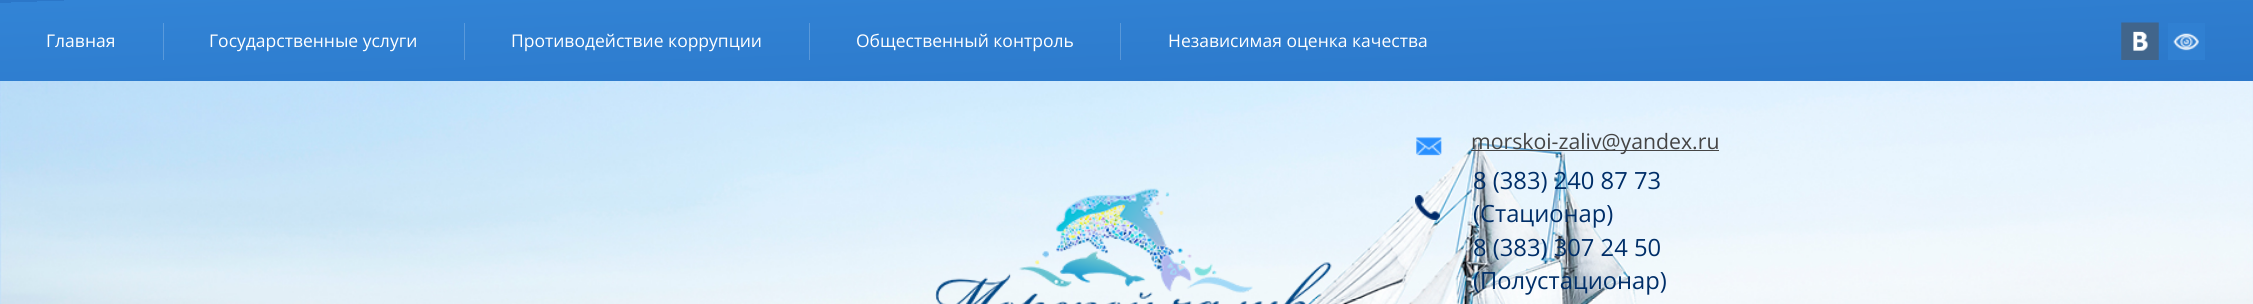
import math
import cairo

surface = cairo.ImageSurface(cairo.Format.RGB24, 2253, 304)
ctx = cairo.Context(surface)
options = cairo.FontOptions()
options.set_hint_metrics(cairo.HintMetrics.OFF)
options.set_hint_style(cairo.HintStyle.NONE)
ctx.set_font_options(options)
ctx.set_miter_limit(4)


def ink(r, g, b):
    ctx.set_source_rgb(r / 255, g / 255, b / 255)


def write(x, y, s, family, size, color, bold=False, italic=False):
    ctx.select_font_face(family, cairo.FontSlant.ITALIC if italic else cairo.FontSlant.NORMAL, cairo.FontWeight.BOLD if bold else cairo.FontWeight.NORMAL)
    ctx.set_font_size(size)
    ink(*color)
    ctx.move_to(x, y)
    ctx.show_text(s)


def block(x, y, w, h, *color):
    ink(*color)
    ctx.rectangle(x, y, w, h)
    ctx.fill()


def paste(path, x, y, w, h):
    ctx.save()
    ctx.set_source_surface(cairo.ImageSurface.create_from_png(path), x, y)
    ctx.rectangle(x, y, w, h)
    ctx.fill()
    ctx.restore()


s1 = dict(family="Open Sans", size=17.5, color=(255, 255, 255))
s2 = dict(family="Open Sans", size=21.25, color=(69, 69, 69))
s3 = dict(family="Open Sans", size=23.75, color=(0, 46, 104))

ink(255, 255, 255)
ctx.paint()
paste("pic1.png", 0, 81, 2253, 223)
gradient = cairo.LinearGradient(1118, -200, 1130, 122)
gradient.add_color_stop_rgba(0, 0.196, 0.518, 0.839, 1)
gradient.add_color_stop_rgba(0.5, 0.169, 0.467, 0.788, 1)
gradient.add_color_stop_rgba(0.5, 0.196, 0.518, 0.839, 1)
gradient.add_color_stop_rgba(1, 0.169, 0.467, 0.788, 1)
ctx.set_source(gradient)
ctx.rectangle(0, 0, 2253, 81)
ctx.fill()
write(46, 47, "Главная", **s1)
ctx.set_source_rgba(1, 1, 1, 0.2)
ctx.rectangle(163, 23, 1, 37)
ctx.fill()
write(209, 47, "Государственные услуги", **s1)
ctx.set_source_rgba(1, 1, 1, 0.2)
ctx.rectangle(464, 23, 1, 37)
ctx.fill()
write(511, 47, "Противодействие коррупции", **s1)
ctx.set_source_rgba(1, 1, 1, 0.2)
ctx.rectangle(809, 23, 1, 37)
ctx.fill()
write(856, 47, "Общественный контроль", **s1)
ctx.set_source_rgba(1, 1, 1, 0.2)
ctx.rectangle(1120, 23, 1, 37)
ctx.fill()
write(1168, 47, "Независимая оценка качества", **s1)
paste("pic2.png", 2121, 22, 38, 38)
block(2168, 23, 37, 37, 48, 128, 210)
paste("pic3.png", 2173, 33, 26, 18)
paste("pic4.png", 935, 188, 397, 116)
paste("pic5.png", 1416, 137, 26, 19)
block(1471, 150, 248, 1, 69, 69, 69)
write(1471, 149, "morskoi-zaliv@yandex.ru", **s2)
paste("pic6.png", 1415, 195, 25, 25)
write(1473, 189, "8 (383) 240 87 73", **s3)
write(1473, 222, "(Стационар)", **s3)
write(1473, 256, "8 (383) 307 24 50", **s3)
write(1473, 289, "(Полустационар)", **s3)
surface.write_to_png("screenshot.png")
